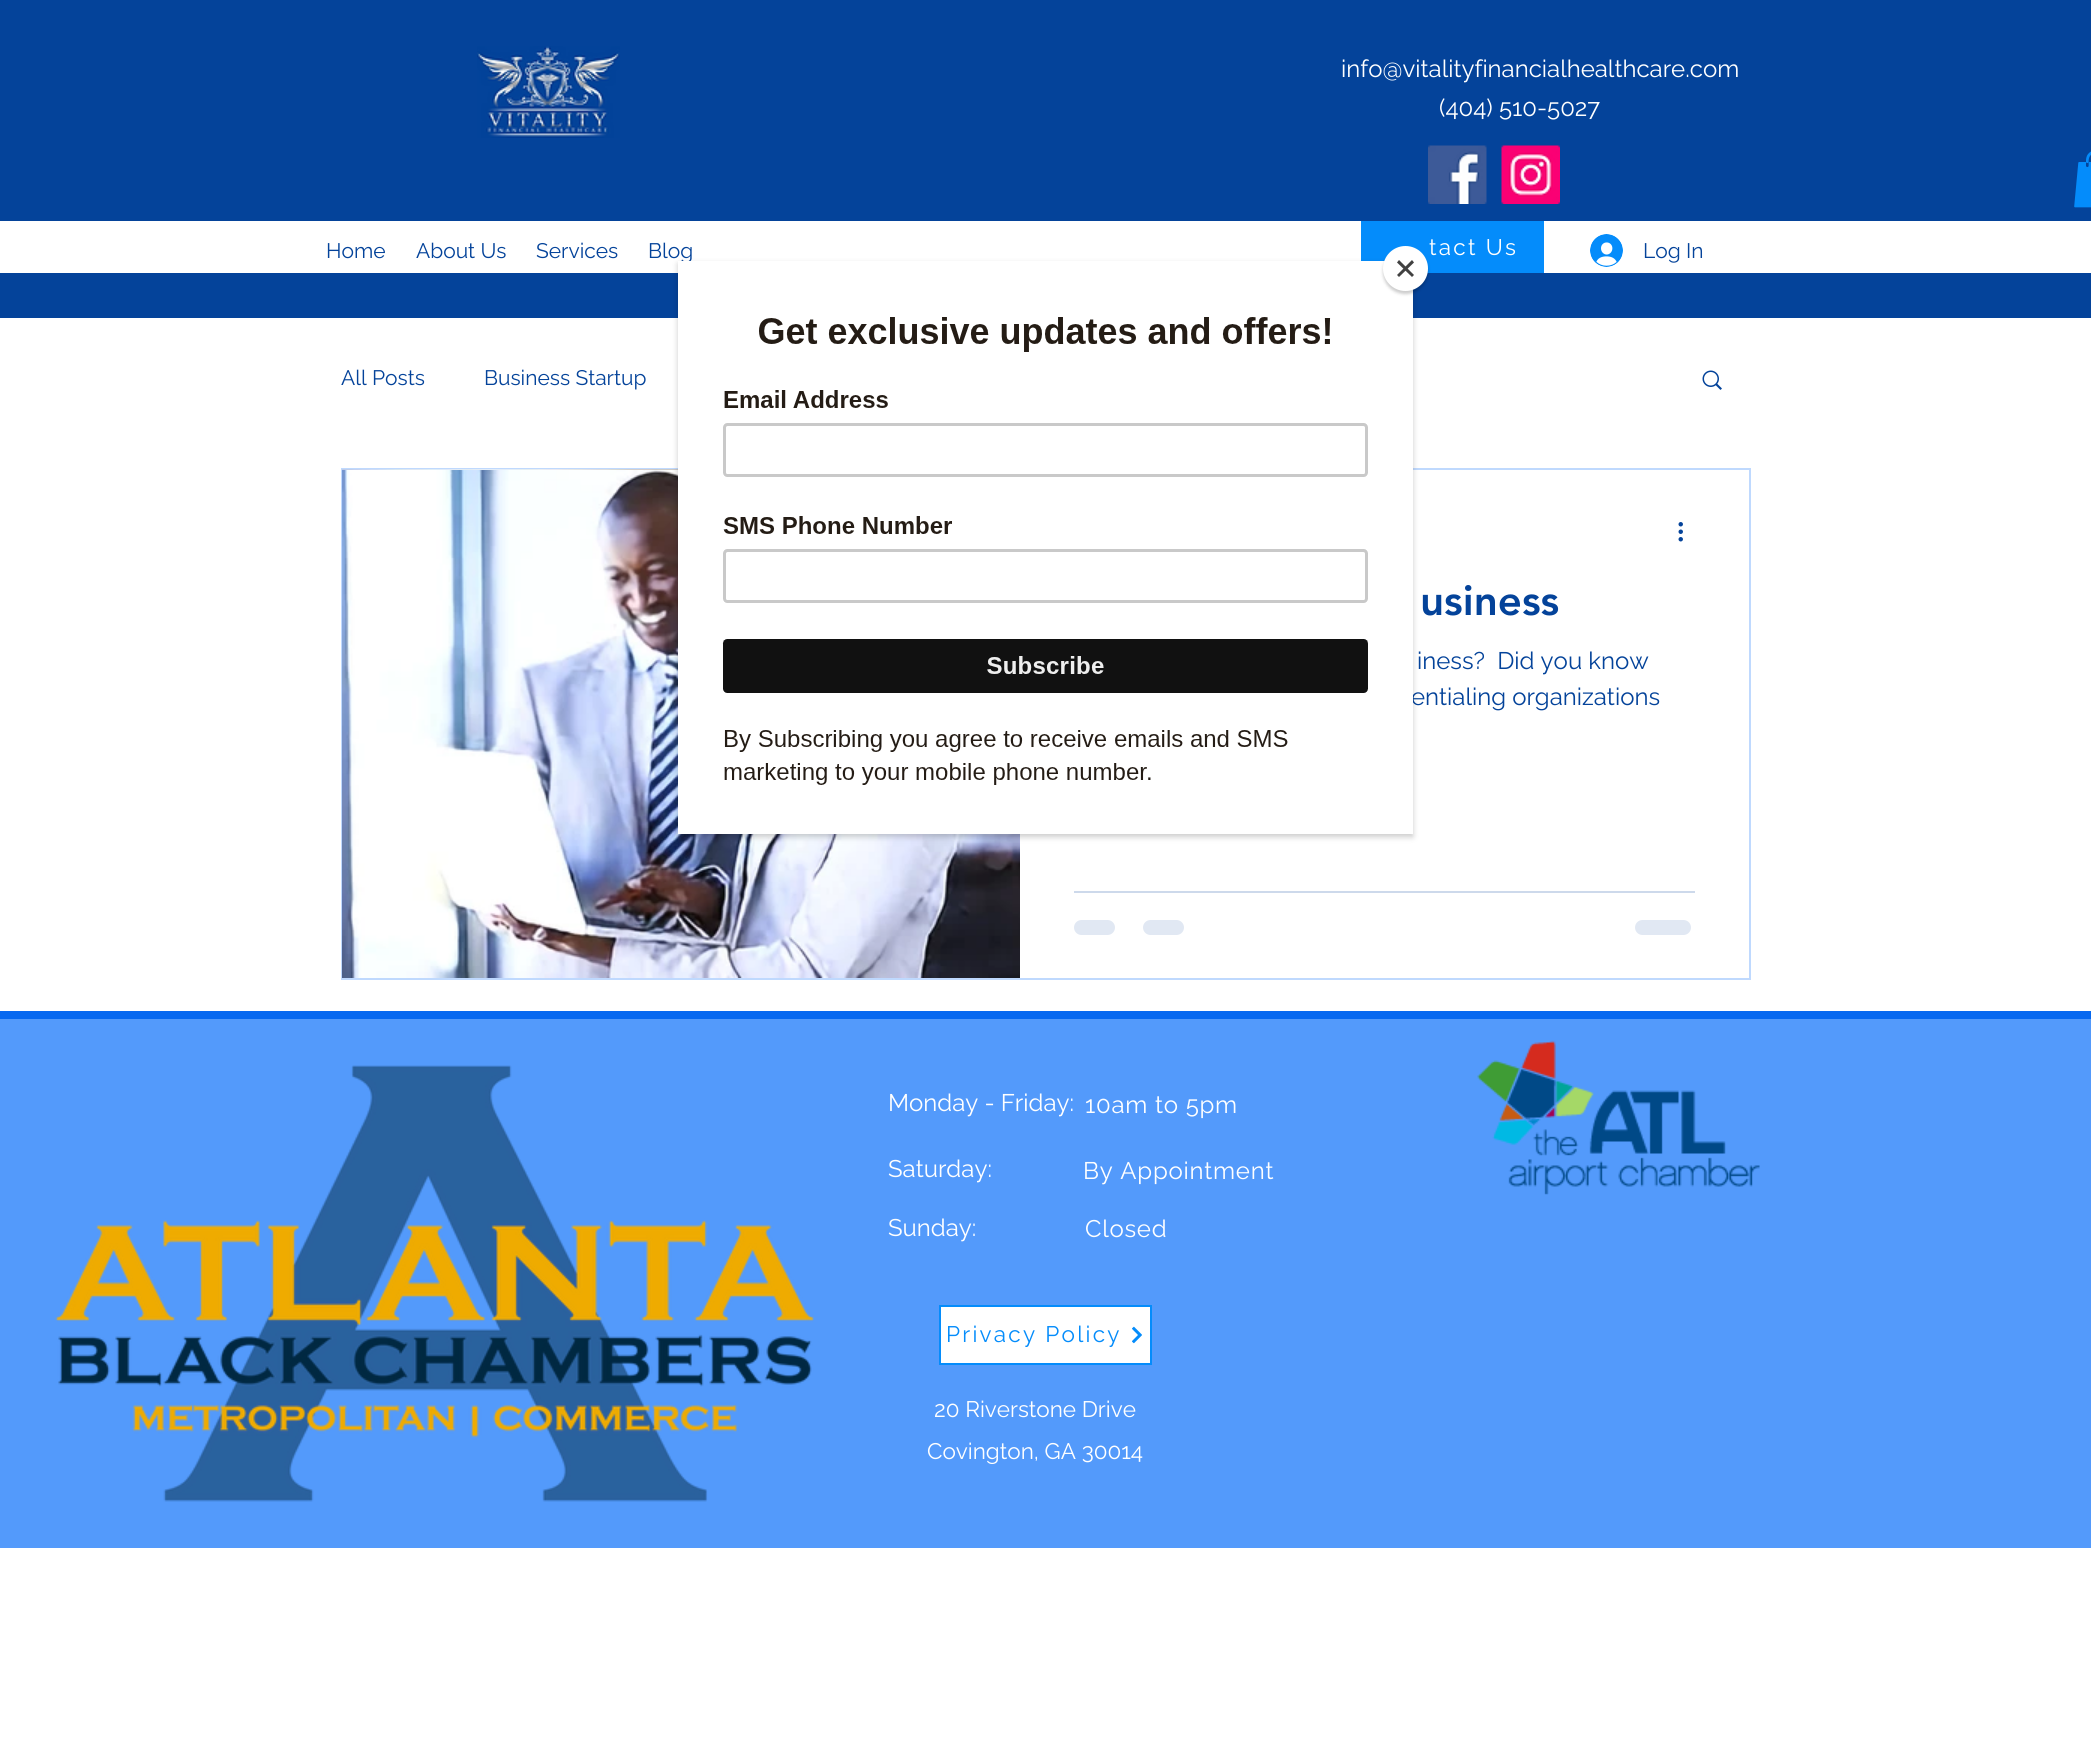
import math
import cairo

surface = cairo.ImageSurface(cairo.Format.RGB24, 2091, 1741)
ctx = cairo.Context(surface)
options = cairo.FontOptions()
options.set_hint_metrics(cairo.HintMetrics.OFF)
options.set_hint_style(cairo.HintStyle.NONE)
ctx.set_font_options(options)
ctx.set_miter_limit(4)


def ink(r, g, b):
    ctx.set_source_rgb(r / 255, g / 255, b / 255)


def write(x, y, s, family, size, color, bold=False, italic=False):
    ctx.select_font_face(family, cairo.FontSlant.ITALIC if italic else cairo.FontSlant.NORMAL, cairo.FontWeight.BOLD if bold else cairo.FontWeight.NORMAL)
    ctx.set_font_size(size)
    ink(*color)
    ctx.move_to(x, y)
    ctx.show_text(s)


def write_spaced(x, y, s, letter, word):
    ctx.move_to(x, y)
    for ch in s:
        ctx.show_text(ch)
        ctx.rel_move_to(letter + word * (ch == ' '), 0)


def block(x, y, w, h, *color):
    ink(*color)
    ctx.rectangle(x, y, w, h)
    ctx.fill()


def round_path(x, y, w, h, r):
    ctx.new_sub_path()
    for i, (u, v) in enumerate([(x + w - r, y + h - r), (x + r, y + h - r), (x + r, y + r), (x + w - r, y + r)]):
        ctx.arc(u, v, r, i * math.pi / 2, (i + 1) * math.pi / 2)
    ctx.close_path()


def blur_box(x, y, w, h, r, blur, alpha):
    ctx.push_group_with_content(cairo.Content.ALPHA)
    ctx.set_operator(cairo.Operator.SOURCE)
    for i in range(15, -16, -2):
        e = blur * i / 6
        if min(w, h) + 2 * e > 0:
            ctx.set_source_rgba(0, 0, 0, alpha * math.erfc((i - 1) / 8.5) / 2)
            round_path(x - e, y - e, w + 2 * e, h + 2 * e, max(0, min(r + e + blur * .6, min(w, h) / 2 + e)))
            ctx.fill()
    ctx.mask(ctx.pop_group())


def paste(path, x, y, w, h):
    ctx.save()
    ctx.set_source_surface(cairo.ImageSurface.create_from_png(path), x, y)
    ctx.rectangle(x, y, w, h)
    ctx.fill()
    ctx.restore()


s1 = dict(family="Raleway", size=24, color=(255, 255, 255))
s2 = dict(family="Raleway", size=21, color=(4, 67, 154))
s3 = dict(family="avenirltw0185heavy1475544 Black", size=42, color=(4, 67, 154))
s4 = dict(family="Raleway", size=24, color=(4, 67, 154))
s5 = dict(family="Raleway", size=22.5, color=(255, 255, 255))

ink(255, 255, 255)
ctx.paint()
block(0, 0, 2091, 318, 4, 67, 154)
paste("pic1.png", 477, 46, 143, 92)
write(1341, 77, "info@vitalityfinancialhealthcare.com", **s1)
write(1439, 116, "(404) 510-5027", **s1)
paste("pic2.png", 1428, 145, 59, 59)
paste("pic3.png", 1501, 145, 59, 59)
paste("pic4.png", 2074, 151, 17, 57)
block(0, 221, 2091, 52, 255, 255, 255)
write(326, 258, "Home", **s2)
write(416, 258, "About Us", **s2)
write(536, 258, "Services", **s2)
write(648, 258, "Blog", **s2)
block(1361, 221, 183, 52, 4, 140, 251)
ctx.set_font_size(22.5)
ink(255, 255, 255)
write_spaced(1429, 255, "tact Us", 2.25, 0)
paste("pic5.png", 1590, 234, 33, 33)
write(1643, 258, "Log In", **s2)
write(341, 385, "All Posts", **s2)
write(484, 385, "Business Startup", **s2)
paste("pic6.png", 1702, 370, 20, 20)
ctx.rectangle(342, 469, 1408, 510)
ink(191, 217, 254)
ctx.stroke()
paste("pic7.png", 342, 469, 336, 1)
paste("pic8.png", 342, 470, 678, 508)
paste("pic9.png", 1678, 522, 5, 20)
write(1420, 615, "usiness", **s3)
write(1417, 669, "iness?  Did you know", **s4)
write(1411, 705, "entialing organizations", **s4)
block(1074, 891, 621, 2, 205, 217, 235)
ink(225, 232, 243)
round_path(1074, 920, 41, 15, 7.5)
ctx.fill()
round_path(1143, 920, 41, 15, 7.5)
ctx.fill()
round_path(1635, 920, 56, 15, 7.5)
ctx.fill()
block(0, 1019, 2091, 529, 83, 154, 251)
block(0, 1011, 2091, 8, 6, 104, 240)
paste("pic10.png", 55, 1065, 759, 437)
write(888, 1111, "Monday - Friday:", **s1)
write_spaced(1085, 1113, "10am to 5pm", 0.75, 0)
paste("pic11.png", 1477, 1040, 283, 155)
write(888, 1177, "Saturday:", **s1)
write_spaced(1083, 1179, "By Appointment", 0.75, 0)
write(888, 1236, "Sunday:", **s1)
write_spaced(1085, 1237, "Closed", 0.75, 0)
ctx.rectangle(940, 1306, 211, 58)
ctx.fill_preserve()
ink(4, 140, 251)
ctx.stroke()
ctx.set_font_size(22.5)
write_spaced(946, 1342, "Privacy Policy", 2.25, 0)
paste("pic12.png", 1132, 1326, 10, 18)
write(934, 1417, "20 Riverstone Drive", **s5)
write(927, 1459, "Covington, GA 30014", **s5)
ink(0, 0, 0)
blur_box(678, 264, 735, 573, 0, 3, 0.2)
paste("pic13.png", 678, 261, 735, 573)
blur_box(1383, 249, 45, 45, 22.5, 1.5, 0.2)
ink(255, 255, 255)
ctx.arc(1405.5, 268.5, 22.5, 0, 2 * math.pi)
ctx.fill()
ink(65, 65, 65)
ctx.new_path()
ctx.move_to(1412, 260)
ctx.line_to(1414, 262.5)
ctx.line_to(1399, 277)
ctx.line_to(1397, 275)
ctx.close_path()
ctx.fill()
ctx.new_path()
ctx.move_to(1397, 262.5)
ctx.line_to(1399, 260)
ctx.line_to(1414, 275)
ctx.line_to(1412, 277)
ctx.close_path()
ctx.fill()
surface.write_to_png("screenshot.png")
